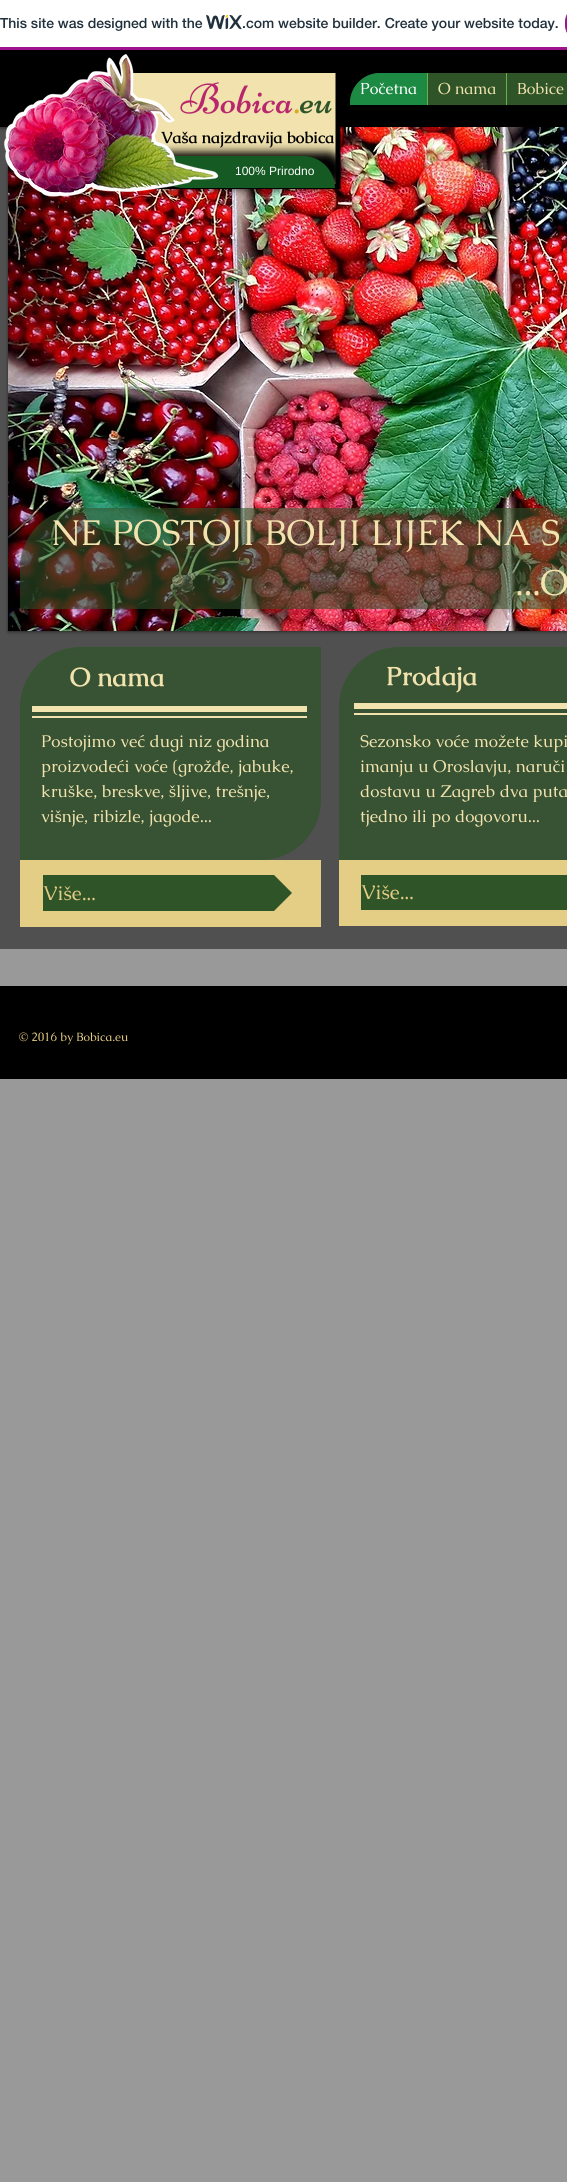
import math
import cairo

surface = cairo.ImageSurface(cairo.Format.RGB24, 567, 2182)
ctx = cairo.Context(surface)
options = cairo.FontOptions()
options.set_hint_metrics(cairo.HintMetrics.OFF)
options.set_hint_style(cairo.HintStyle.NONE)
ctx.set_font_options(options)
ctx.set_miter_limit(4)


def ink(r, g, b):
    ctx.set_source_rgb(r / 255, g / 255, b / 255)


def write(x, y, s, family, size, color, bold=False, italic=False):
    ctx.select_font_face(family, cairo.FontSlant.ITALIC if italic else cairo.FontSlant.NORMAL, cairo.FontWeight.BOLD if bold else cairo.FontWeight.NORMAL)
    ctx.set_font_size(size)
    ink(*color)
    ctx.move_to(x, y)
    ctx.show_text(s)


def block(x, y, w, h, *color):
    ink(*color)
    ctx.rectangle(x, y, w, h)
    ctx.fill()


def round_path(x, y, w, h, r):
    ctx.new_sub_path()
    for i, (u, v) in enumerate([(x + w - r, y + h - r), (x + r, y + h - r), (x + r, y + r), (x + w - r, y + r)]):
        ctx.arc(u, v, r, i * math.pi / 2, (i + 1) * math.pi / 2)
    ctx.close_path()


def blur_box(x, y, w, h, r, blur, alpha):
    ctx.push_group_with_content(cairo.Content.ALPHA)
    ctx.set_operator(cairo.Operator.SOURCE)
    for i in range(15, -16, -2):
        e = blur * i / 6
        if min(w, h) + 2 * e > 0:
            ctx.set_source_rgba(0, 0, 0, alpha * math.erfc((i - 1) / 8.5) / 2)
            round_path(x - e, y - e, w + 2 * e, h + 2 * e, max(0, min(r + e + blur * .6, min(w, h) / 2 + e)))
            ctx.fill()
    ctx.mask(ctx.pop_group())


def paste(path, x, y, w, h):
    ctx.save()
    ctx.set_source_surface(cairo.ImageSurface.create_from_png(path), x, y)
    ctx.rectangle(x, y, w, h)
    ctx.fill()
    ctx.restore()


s1 = dict(family="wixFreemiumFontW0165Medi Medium", size=14, color=(32, 48, 60))
s2 = dict(family="Caudex", size=16, color=(255, 255, 255))
s3 = dict(family="Caudex", size=16, color=(241, 226, 174))
s4 = dict(family="Caudex", size=16, color=(0, 0, 0), bold=True)
s5 = dict(family="Liberation Sans", size=12, color=(255, 255, 255))
s6 = dict(family="Caudex", size=36, color=(241, 226, 174))
s7 = dict(family="Caudex", size=26, color=(241, 226, 174), bold=True)
s8 = dict(family="Caudex", size=17, color=(241, 226, 174))
s9 = dict(family="Caudex", size=20, color=(228, 205, 132))
s10 = dict(family="Caudex", size=12, color=(228, 205, 132))

ink(153, 153, 153)
ctx.paint()
ink(0, 0, 0)
blur_box(0, 50, 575, 77, 0, 2.5, 0.7)
block(0, 0, 567, 47, 255, 255, 255)
block(0, 47, 567, 3, 160, 19, 142)
write(0, 28, "This site was designed with the", **s1)
paste("pic1.png", 206, 15, 36, 15)
write(242, 28, ".com website builder. Create your website today.", **s1)
ink(160, 19, 142)
round_path(565.5, 5.5, 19, 36, 16.5)
ctx.fill_preserve()
ctx.set_line_width(1)
ctx.stroke()
block(0, 50, 567, 77, 0, 0, 0)
ink(47, 84, 40)
ctx.new_path()
ctx.move_to(380, 73)
ctx.line_to(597, 73)
ctx.line_to(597, 75)
ctx.curve_to(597, 91.5, 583.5, 105, 567, 105)
ctx.line_to(350, 105)
ctx.line_to(350, 103)
ctx.curve_to(350, 86.5, 363.5, 73, 380, 73)
ctx.close_path()
ctx.fill()
ink(28, 138, 67)
ctx.new_path()
ctx.move_to(380, 73)
ctx.line_to(427, 73)
ctx.line_to(427, 105)
ctx.line_to(350, 105)
ctx.line_to(350, 103)
ctx.curve_to(350, 86.5, 363.5, 73, 380, 73)
ctx.close_path()
ctx.fill()
write(360, 94, "Početna", **s2)
block(427, 73, 1, 32, 104, 176, 77)
write(438, 94, "O nama", **s3)
block(506, 73, 1, 32, 104, 176, 77)
write(517, 94, "Bobice", **s3)
ctx.set_source_rgba(0, 0, 0, 0.48)
ctx.rectangle(0, 127, 567, 822)
ctx.fill()
ink(0, 0, 0)
blur_box(8, 128, 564, 504, 0, 1.5, 0.5)
paste("pic6.png", 8, 127, 559, 504)
block(131, 73, 205, 111, 241, 226, 174)
ctx.new_path()
ctx.move_to(338, 70.5)
ctx.line_to(338, 186.5)
ctx.line_to(129, 186.5)
ctx.line_to(129, 70.5)
ctx.close_path()
ink(0, 0, 0)
ctx.set_line_width(5)
ctx.stroke()
ink(0, 0, 0)
blur_box(155, 152, 188, 36, 34, 4.5, 1)
ink(21, 89, 35)
ctx.new_path()
ctx.move_to(151, 156)
ctx.line_to(303, 156)
ctx.curve_to(320.5, 156, 335, 170.5, 335, 188)
ctx.line_to(183, 188)
ctx.curve_to(165.5, 188, 151, 173.5, 151, 156)
ctx.close_path()
ctx.fill()
paste("pic2.png", 4, 54, 215, 143)
paste("pic3.png", 180, 82, 113, 32)
paste("pic4.png", 294, 109, 5, 5)
paste("pic5.png", 300, 100, 32, 14)
write(161, 143, "Vaša najzdravija bobica", **s4)
write(235, 175, "100% Prirodno", **s5)
ctx.set_source_rgba(0.184, 0.329, 0.157, 0.58)
ctx.new_path()
ctx.move_to(80, 508)
ctx.line_to(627, 508)
ctx.line_to(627, 549)
ctx.curve_to(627, 582, 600, 609, 567, 609)
ctx.line_to(20, 609)
ctx.line_to(20, 568)
ctx.curve_to(20, 535, 47, 508, 80, 508)
ctx.close_path()
ctx.fill()
write(51, 545, "NE POSTOJI BOLJI LIJEK NA S", **s6)
write(515, 595, "...O", **s6)
ink(56, 83, 51)
ctx.new_path()
ctx.move_to(80, 647)
ctx.line_to(321, 647)
ctx.line_to(321, 800)
ctx.curve_to(321, 833, 294, 860, 261, 860)
ctx.line_to(20, 860)
ctx.line_to(20, 707)
ctx.curve_to(20, 674, 47, 647, 80, 647)
ctx.close_path()
ctx.fill()
write(70, 686, "O nama", **s7)
block(32, 706, 275, 6, 241, 226, 174)
block(32, 716, 275, 2, 241, 226, 174)
write(41, 747, "Postojimo već dugi niz godina", **s8)
write(41, 772, "proizvodeći voće (grožđe, jabuke,", **s8)
write(41, 797, "kruške, breskve, šljive, trešnje,", **s8)
write(41, 822, "višnje, ribizle, jagode...", **s8)
ink(56, 83, 51)
ctx.new_path()
ctx.move_to(399, 647)
ctx.line_to(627, 647)
ctx.line_to(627, 800)
ctx.curve_to(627, 833, 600, 860, 567, 860)
ctx.line_to(339, 860)
ctx.line_to(339, 707)
ctx.curve_to(339, 674, 366, 647, 399, 647)
ctx.close_path()
ctx.fill()
write(386, 685, "Prodaja", **s7)
block(354, 703, 213, 6, 241, 226, 174)
block(354, 713, 213, 2, 241, 226, 174)
write(360, 747, "Sezonsko voće možete kupi", **s8)
write(360, 772, "imanju u Oroslavju, naruči", **s8)
write(360, 797, "dostavu u Zagreb dva puta", **s8)
write(360, 822, "tjedno ili po dogovoru...", **s8)
block(20, 860, 301, 67, 228, 205, 132)
block(43, 875, 199, 36, 47, 84, 40)
ctx.save()
ctx.rectangle(43, 875, 249, 36)
ctx.clip()
ctx.new_path()
ctx.move_to(292, 893)
ctx.line_to(242, 893)
ctx.line_to(242, 843)
ctx.close_path()
ctx.move_to(242, 893)
ctx.line_to(292, 893)
ctx.line_to(242, 943)
ctx.close_path()
ctx.fill()
ctx.restore()
write(43, 900, "Više...", **s9)
block(339, 860, 228, 66, 228, 205, 132)
block(361, 875, 206, 35, 47, 84, 40)
write(361, 899, "Više...", **s9)
block(0, 986, 567, 93, 0, 0, 0)
write(19, 1041, "© 2016 by Bobica.eu", **s10)
surface.write_to_png("screenshot.png")
